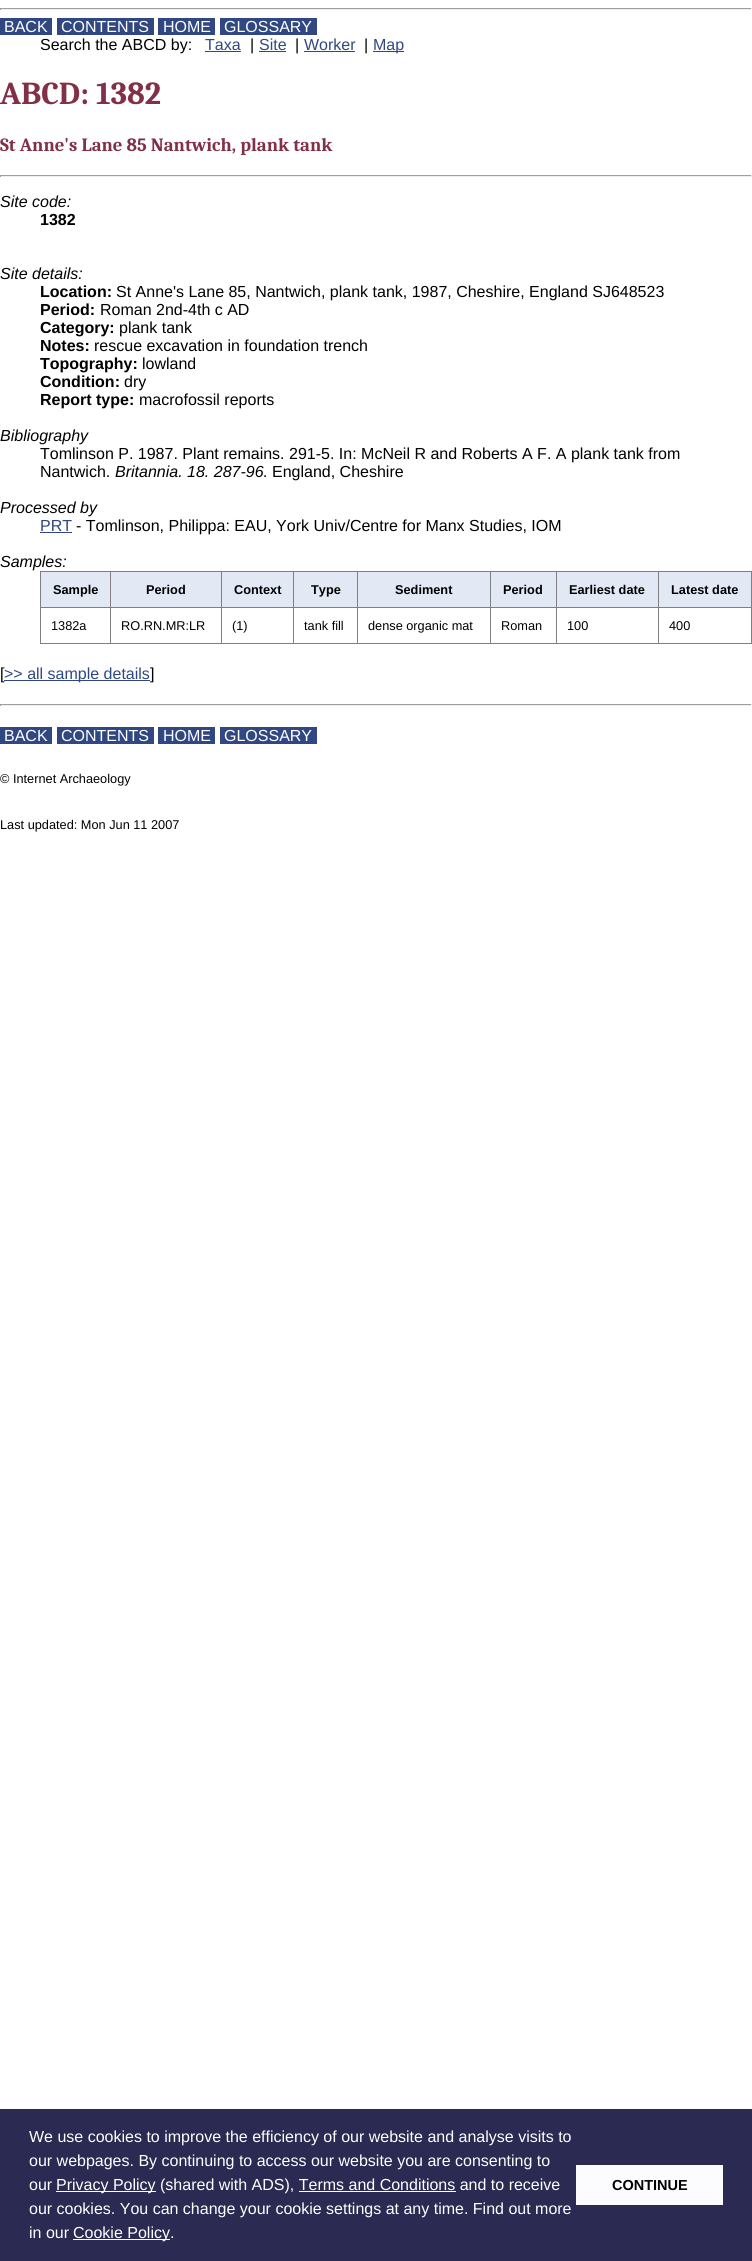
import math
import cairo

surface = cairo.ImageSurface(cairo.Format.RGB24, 752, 2261)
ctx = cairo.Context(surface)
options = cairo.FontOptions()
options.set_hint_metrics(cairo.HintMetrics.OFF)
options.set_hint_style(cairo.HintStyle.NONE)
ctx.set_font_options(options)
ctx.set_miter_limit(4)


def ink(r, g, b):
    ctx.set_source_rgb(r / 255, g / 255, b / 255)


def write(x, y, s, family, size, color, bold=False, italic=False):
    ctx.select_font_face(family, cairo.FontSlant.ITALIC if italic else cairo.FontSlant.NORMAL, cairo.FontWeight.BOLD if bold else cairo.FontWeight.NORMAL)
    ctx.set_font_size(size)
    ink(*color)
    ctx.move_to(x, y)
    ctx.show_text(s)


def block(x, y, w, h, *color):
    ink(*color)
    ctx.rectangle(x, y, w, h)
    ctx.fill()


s1 = dict(family="Liberation Sans", size=16, color=(255, 255, 255))
s2 = dict(family="Liberation Sans", size=16, color=(0, 0, 0))
s3 = dict(family="Liberation Sans", size=16, color=(48, 71, 130))
s4 = dict(family="Caladea", size=32, color=(130, 48, 71), bold=True)
s5 = dict(family="Caladea", size=18.75, color=(130, 48, 71), bold=True)
s6 = dict(family="Liberation Sans", size=16, color=(0, 0, 0), italic=True)
s7 = dict(family="Liberation Sans", size=16, color=(0, 0, 0), bold=True)
s8 = dict(family="Liberation Sans", size=12.75, color=(0, 0, 0), bold=True)
s9 = dict(family="Liberation Sans", size=12.75, color=(0, 0, 0))
s10 = dict(family="Liberation Sans", size=14.5, color=(0, 0, 0), bold=True)

ink(255, 255, 255)
ctx.paint()
block(0, 8, 752, 1, 159, 159, 159)
block(751, 8, 1, 2, 238, 238, 238)
block(0, 9, 752, 1, 238, 238, 238)
block(0, 8, 1, 2, 159, 159, 159)
block(0, 18, 52, 17, 48, 71, 130)
write(4, 32, "BACK", **s1)
block(57, 18, 97, 17, 48, 71, 130)
write(61, 32, "CONTENTS", **s1)
block(158, 18, 57, 17, 48, 71, 130)
write(163, 32, "HOME", **s1)
block(220, 18, 97, 17, 48, 71, 130)
write(224, 32, "GLOSSARY", **s1)
write(40, 50, "Search the ABCD by:", **s2)
write(205, 50, "Taxa", **s3)
block(205, 51, 36, 1, 48, 71, 130)
write(250, 50, "|", **s2)
write(259, 50, "Site", **s3)
block(259, 51, 27, 1, 48, 71, 130)
write(295, 50, "|", **s2)
write(304, 50, "Worker", **s3)
block(304, 51, 51, 1, 48, 71, 130)
write(364, 50, "|", **s2)
block(373, 51, 31, 1, 48, 71, 130)
write(373, 50, "Map", **s3)
write(0, 104, "ABCD: 1382", **s4)
write(0, 151, "St Anne's Lane 85 Nantwich, plank tank", **s5)
block(0, 175, 752, 1, 159, 159, 159)
block(751, 175, 1, 2, 238, 238, 238)
block(0, 176, 752, 1, 238, 238, 238)
block(0, 175, 1, 2, 159, 159, 159)
write(0, 207, "Site code:", **s6)
write(40, 225, "1382", **s7)
write(0, 279, "Site details:", **s6)
write(40, 297, "Location:", **s7)
write(116, 297, "St Anne's Lane 85, Nantwich, plank tank, 1987, Cheshire, England SJ648523", **s2)
write(40, 315, "Period:", **s7)
write(100, 315, "Roman 2nd-4th c AD", **s2)
write(40, 333, "Category:", **s7)
write(119, 333, "plank tank", **s2)
write(40, 351, "Notes:", **s7)
write(94, 351, "rescue excavation in foundation trench", **s2)
write(40, 369, "Topography:", **s7)
write(142, 369, "lowland", **s2)
write(40, 387, "Condition:", **s7)
write(124, 387, "dry", **s2)
write(40, 405, "Report type:", **s7)
write(139, 405, "macrofossil reports", **s2)
write(0, 441, "Bibliography", **s6)
write(40, 459, "Tomlinson P. 1987. Plant remains. 291-5. In: McNeil R and Roberts A F. A plank tank from", **s2)
write(40, 477, "Nantwich.", **s2)
write(115, 477, "Britannia. 18. 287-96.", **s6)
write(272, 477, "England, Cheshire", **s2)
write(0, 513, "Processed by", **s6)
write(40, 531, "PRT", **s3)
block(40, 532, 32, 1, 48, 71, 130)
write(76, 531, "- Tomlinson, Philippa: EAU, York Univ/Centre for Manx Studies, IOM", **s2)
write(0, 567, "Samples:", **s6)
block(41, 572, 69, 35, 227, 232, 245)
block(658, 571, 94, 1, 128, 128, 128)
block(658, 607, 94, 1, 128, 128, 128)
block(751, 607, 1, 37, 128, 128, 128)
block(658, 643, 94, 1, 128, 128, 128)
block(658, 607, 1, 37, 128, 128, 128)
block(556, 607, 103, 1, 128, 128, 128)
block(658, 571, 1, 37, 128, 128, 128)
block(556, 571, 103, 1, 128, 128, 128)
block(556, 643, 103, 1, 128, 128, 128)
block(556, 607, 1, 37, 128, 128, 128)
block(490, 607, 67, 1, 128, 128, 128)
block(556, 571, 1, 37, 128, 128, 128)
block(490, 571, 67, 1, 128, 128, 128)
block(490, 643, 67, 1, 128, 128, 128)
block(490, 607, 1, 37, 128, 128, 128)
block(357, 607, 134, 1, 128, 128, 128)
block(490, 571, 1, 37, 128, 128, 128)
block(357, 571, 134, 1, 128, 128, 128)
block(357, 643, 134, 1, 128, 128, 128)
block(357, 607, 1, 37, 128, 128, 128)
block(293, 607, 65, 1, 128, 128, 128)
block(357, 571, 1, 37, 128, 128, 128)
block(293, 571, 65, 1, 128, 128, 128)
block(293, 643, 65, 1, 128, 128, 128)
block(293, 607, 1, 37, 128, 128, 128)
block(221, 607, 73, 1, 128, 128, 128)
block(293, 571, 1, 37, 128, 128, 128)
block(221, 571, 73, 1, 128, 128, 128)
block(221, 643, 73, 1, 128, 128, 128)
block(221, 607, 1, 37, 128, 128, 128)
block(110, 607, 112, 1, 128, 128, 128)
block(221, 571, 1, 37, 128, 128, 128)
block(110, 571, 112, 1, 128, 128, 128)
block(110, 643, 112, 1, 128, 128, 128)
block(110, 607, 1, 37, 128, 128, 128)
block(40, 607, 71, 1, 128, 128, 128)
block(110, 571, 1, 37, 128, 128, 128)
block(40, 571, 71, 1, 128, 128, 128)
block(40, 643, 71, 1, 128, 128, 128)
block(40, 607, 1, 37, 128, 128, 128)
block(40, 571, 1, 37, 128, 128, 128)
write(53, 594, "Sample", **s8)
block(111, 572, 110, 35, 227, 232, 245)
write(146, 594, "Period", **s8)
block(222, 572, 71, 35, 227, 232, 245)
write(234, 594, "Context", **s8)
block(294, 572, 63, 35, 227, 232, 245)
write(311, 594, "Type", **s8)
block(358, 572, 132, 35, 227, 232, 245)
write(395, 594, "Sediment", **s8)
block(491, 572, 65, 35, 227, 232, 245)
write(503, 594, "Period", **s8)
block(557, 572, 101, 35, 227, 232, 245)
write(569, 594, "Earliest date", **s8)
block(659, 572, 92, 35, 227, 232, 245)
block(751, 571, 1, 37, 128, 128, 128)
write(671, 594, "Latest date", **s8)
write(51, 630, "1382a", **s9)
write(121, 630, "RO.RN.MR:LR", **s9)
write(232, 630, "(1)", **s9)
write(304, 630, "tank fill", **s9)
write(368, 630, "dense organic mat", **s9)
write(501, 630, "Roman", **s9)
write(567, 630, "100", **s9)
write(669, 630, "400", **s9)
write(0, 679, "[", **s2)
block(4, 680, 146, 1, 48, 71, 130)
write(4, 679, ">> all sample details", **s3)
write(150, 679, "]", **s2)
block(0, 704, 752, 1, 159, 159, 159)
block(751, 704, 1, 2, 238, 238, 238)
block(0, 705, 752, 1, 238, 238, 238)
block(0, 704, 1, 2, 159, 159, 159)
block(0, 727, 52, 17, 48, 71, 130)
write(4, 741, "BACK", **s1)
block(57, 727, 97, 17, 48, 71, 130)
write(61, 741, "CONTENTS", **s1)
block(158, 727, 57, 17, 48, 71, 130)
write(163, 741, "HOME", **s1)
block(220, 727, 97, 17, 48, 71, 130)
write(224, 741, "GLOSSARY", **s1)
write(0, 783, "© Internet Archaeology", **s9)
write(0, 829, "Last updated: Mon Jun 11 2007", **s9)
block(0, 2109, 752, 152, 42, 42, 82)
write(29, 2142, "We use cookies to improve the efficiency of our website and analyse visits to", **s1)
write(29, 2166, "our webpages. By continuing to access our website you are consenting to", **s1)
write(29, 2190, "our", **s1)
block(56, 2191, 100, 1, 255, 255, 255)
write(56, 2190, "Privacy Policy (shared with ADS), Terms and Conditions and to receive", **s1)
block(299, 2191, 157, 1, 255, 255, 255)
write(29, 2214, "our cookies. You can change your cookie settings at any time. Find out more", **s1)
write(29, 2238, "in our", **s1)
block(73, 2239, 97, 1, 255, 255, 255)
write(73, 2238, "Cookie Policy.", **s1)
block(576, 2165, 147, 40, 252, 252, 255)
write(612, 2190, "CONTINUE", **s10)
surface.write_to_png("screenshot.png")
